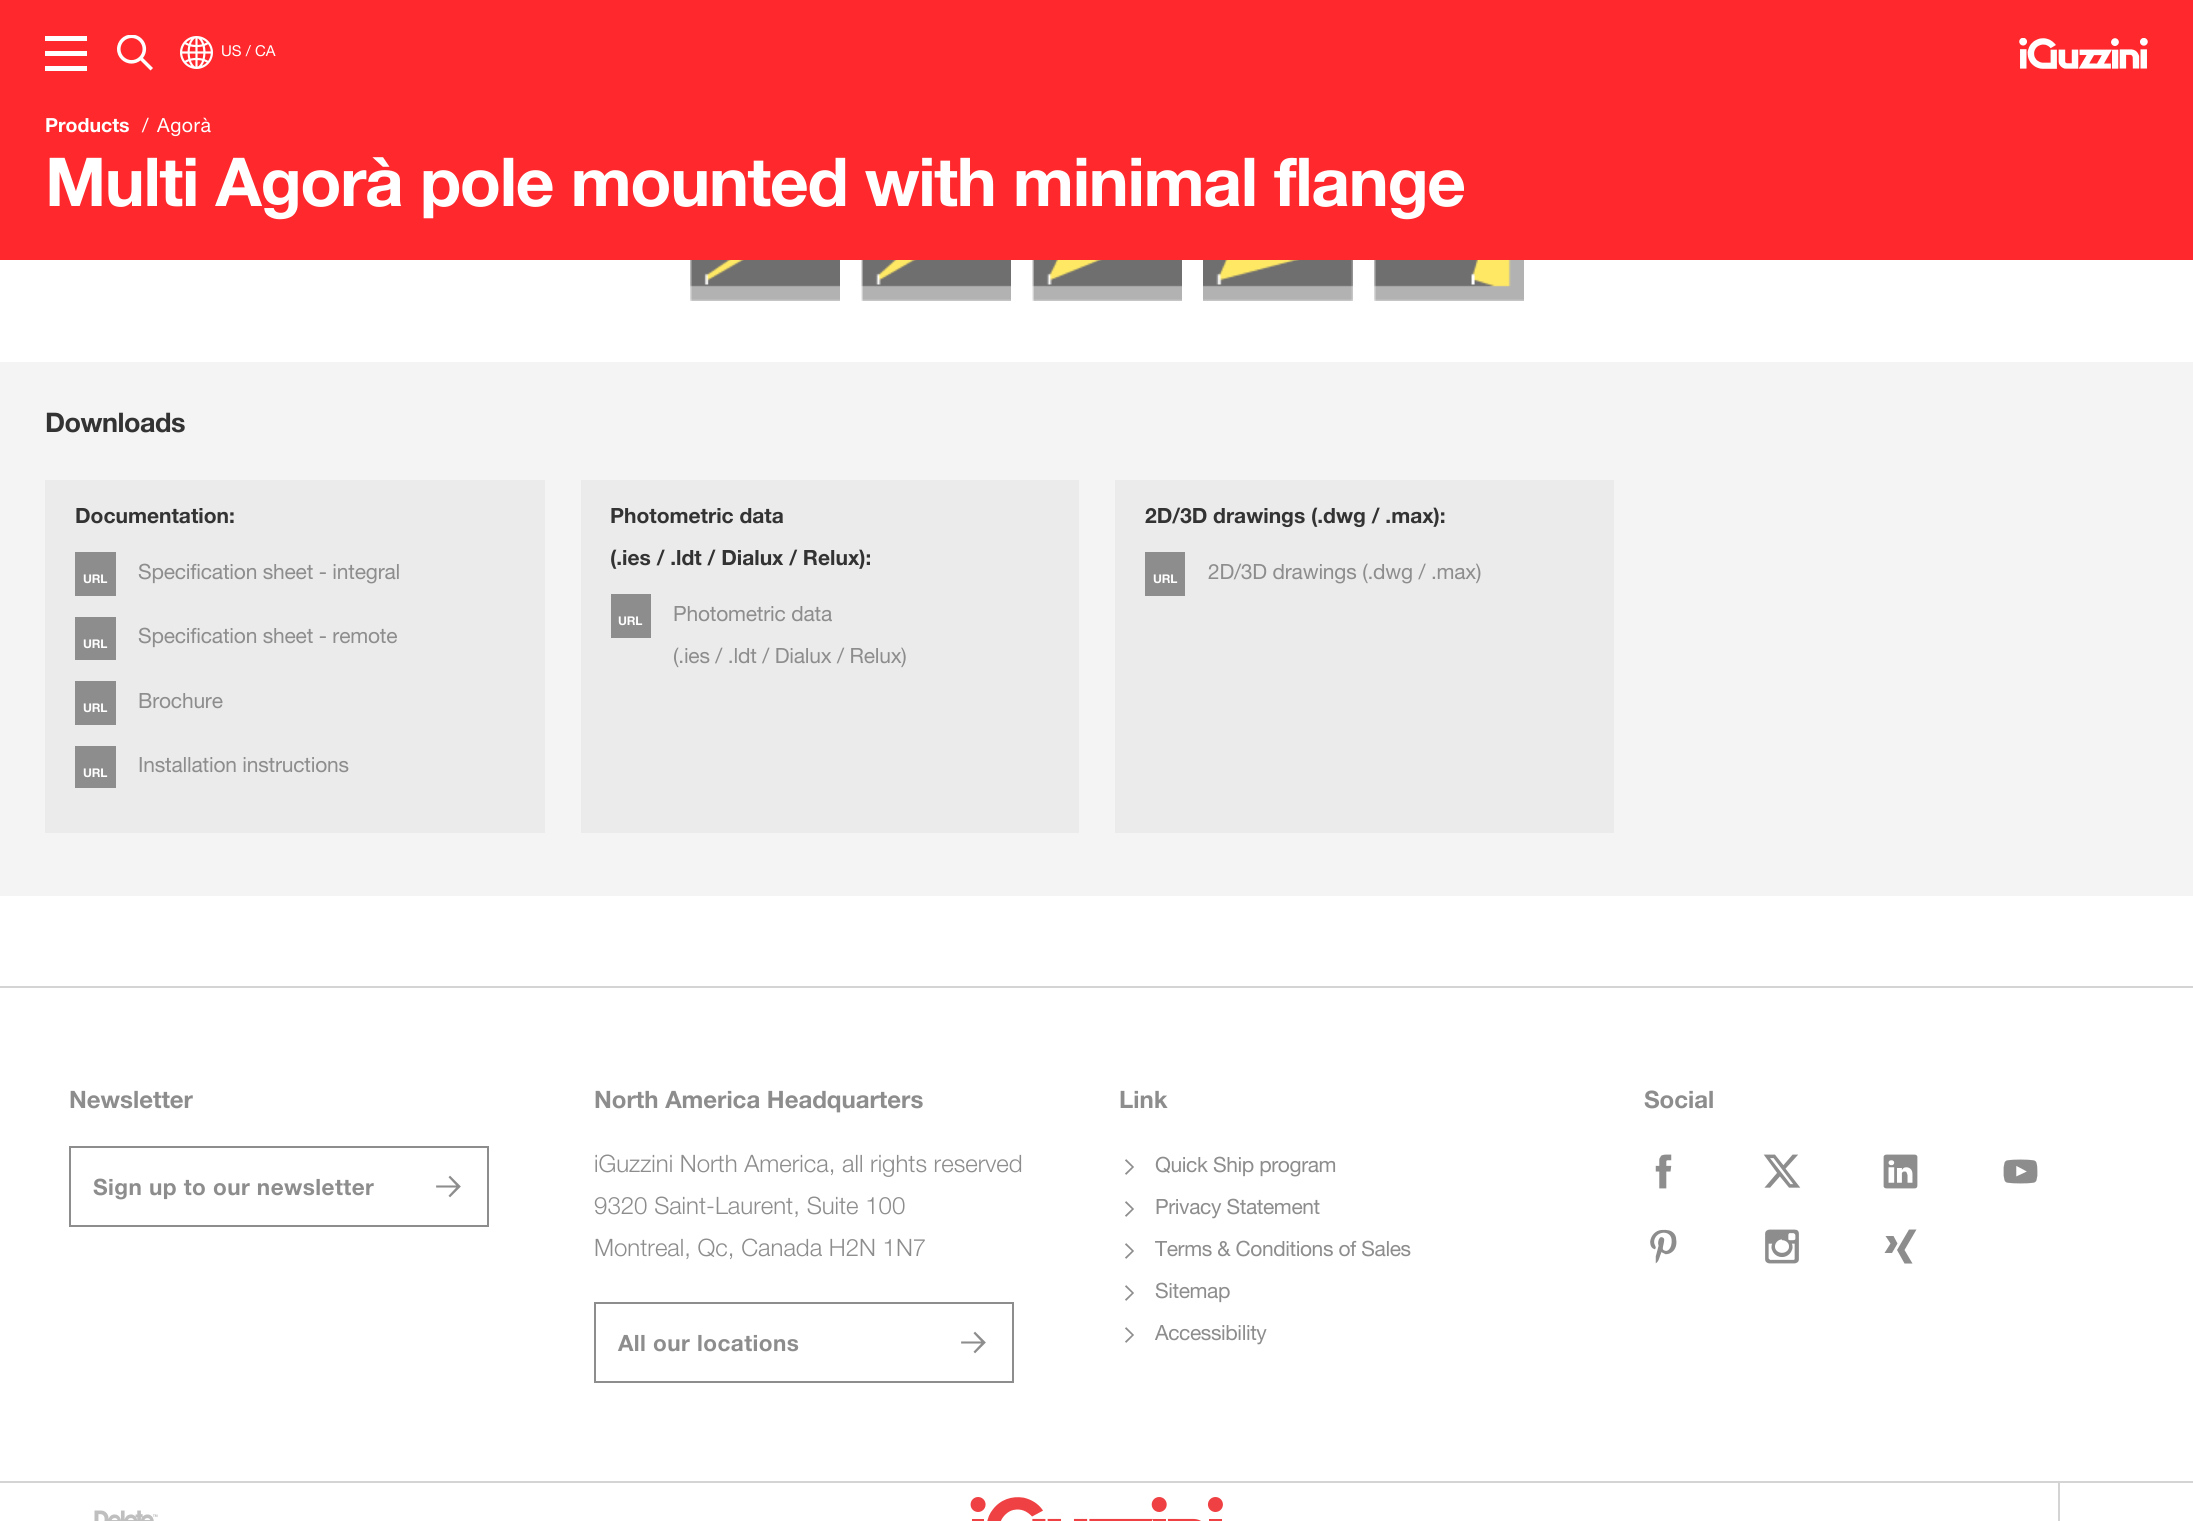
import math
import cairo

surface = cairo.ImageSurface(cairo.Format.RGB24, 2193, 1521)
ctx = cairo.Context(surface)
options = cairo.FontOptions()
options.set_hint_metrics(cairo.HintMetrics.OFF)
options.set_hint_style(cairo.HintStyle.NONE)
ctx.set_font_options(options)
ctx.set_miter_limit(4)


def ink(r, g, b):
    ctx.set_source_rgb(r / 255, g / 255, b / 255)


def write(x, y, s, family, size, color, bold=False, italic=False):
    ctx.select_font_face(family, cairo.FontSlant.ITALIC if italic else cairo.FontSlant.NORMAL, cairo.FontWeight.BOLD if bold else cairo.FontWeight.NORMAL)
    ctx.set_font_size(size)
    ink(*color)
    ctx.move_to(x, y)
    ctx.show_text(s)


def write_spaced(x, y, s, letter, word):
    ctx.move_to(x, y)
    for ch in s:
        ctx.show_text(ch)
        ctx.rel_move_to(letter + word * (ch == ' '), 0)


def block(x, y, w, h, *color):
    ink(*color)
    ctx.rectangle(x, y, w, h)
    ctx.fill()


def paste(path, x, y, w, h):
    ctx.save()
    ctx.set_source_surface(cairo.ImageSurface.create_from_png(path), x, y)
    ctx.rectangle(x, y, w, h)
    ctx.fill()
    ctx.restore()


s1 = dict(family="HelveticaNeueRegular", size=15, color=(255, 255, 255))
s2 = dict(family="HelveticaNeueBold", size=19.5, color=(255, 255, 255))
s3 = dict(family="HelveticaNeueBold", size=21, color=(51, 51, 51))
s4 = dict(family="HelveticaNeueBold", size=24, color=(141, 141, 141))
s5 = dict(family="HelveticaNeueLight", size=24, color=(141, 141, 141))

ink(255, 255, 255)
ctx.paint()
block(0, 0, 2193, 260, 255, 40, 45)
block(45, 36, 42, 5, 255, 255, 255)
block(45, 51, 42, 5, 255, 255, 255)
block(45, 66, 42, 5, 255, 255, 255)
paste("pic1.png", 117, 35, 36, 36)
paste("pic2.png", 180, 36, 33, 33)
write(221, 56, "US / CA", **s1)
paste("pic3.png", 2019, 38, 129, 31)
write(45, 132, "Products", **s2)
ctx.select_font_face("HelveticaNeueRegular")
write_spaced(142, 132, "/", 0.5, 0)
write_spaced(157, 132, "Agorà", 0.5, 0)
ctx.select_font_face("HelveticaNeueBold")
ctx.set_font_size(67.5)
write_spaced(45, 206, "Multi Agorà pole mounted with minimal flange", -1.35, 0)
paste("pic4.png", 690, 260, 150, 41)
paste("pic5.png", 861, 260, 150, 41)
paste("pic6.png", 1032, 260, 150, 41)
paste("pic7.png", 1203, 260, 150, 41)
paste("pic8.png", 1374, 260, 150, 41)
block(0, 362, 2193, 534, 244, 244, 244)
ctx.set_font_size(27)
ink(51, 51, 51)
write_spaced(45, 432, "Downloads", -0.5, 0)
block(45, 480, 500, 353, 235, 235, 235)
write(75, 523, "Documentation:", **s3)
block(75, 552, 41, 44, 141, 141, 141)
ctx.set_font_size(12)
ink(255, 255, 255)
write_spaced(83, 583, "URL", -0.2, 0)
ctx.select_font_face("HelveticaNeueRegular")
ctx.set_font_size(21)
ink(141, 141, 141)
write_spaced(138, 579, "Specification sheet - integral", -0.2, 0)
block(75, 617, 41, 43, 141, 141, 141)
ctx.select_font_face("HelveticaNeueBold")
ctx.set_font_size(12)
ink(255, 255, 255)
write_spaced(83, 648, "URL", -0.2, 0)
ctx.select_font_face("HelveticaNeueRegular")
ctx.set_font_size(21)
ink(141, 141, 141)
write_spaced(138, 643, "Specification sheet - remote", -0.2, 0)
block(75, 681, 41, 44, 141, 141, 141)
ctx.select_font_face("HelveticaNeueBold")
ctx.set_font_size(12)
ink(255, 255, 255)
write_spaced(83, 712, "URL", -0.2, 0)
ctx.select_font_face("HelveticaNeueRegular")
ctx.set_font_size(21)
ink(141, 141, 141)
write_spaced(138, 708, "Brochure", -0.2, 0)
block(75, 746, 41, 42, 141, 141, 141)
ctx.select_font_face("HelveticaNeueBold")
ctx.set_font_size(12)
ink(255, 255, 255)
write_spaced(83, 777, "URL", -0.2, 0)
ctx.select_font_face("HelveticaNeueRegular")
ctx.set_font_size(21)
ink(141, 141, 141)
write_spaced(138, 772, "Installation instructions", -0.2, 0)
block(581, 480, 498, 353, 235, 235, 235)
write(610, 523, "Photometric data", **s3)
write(610, 565, "(.ies / .ldt / Dialux / Relux):", **s3)
block(611, 594, 40, 44, 141, 141, 141)
ctx.set_font_size(12)
ink(255, 255, 255)
write_spaced(618, 625, "URL", -0.2, 0)
ctx.select_font_face("HelveticaNeueRegular")
ctx.set_font_size(21)
ink(141, 141, 141)
write_spaced(673, 621, "Photometric data", -0.2, 0)
write_spaced(673, 663, "(.ies / .ldt / Dialux / Relux)", -0.2, 0)
block(1115, 480, 499, 353, 235, 235, 235)
write(1145, 523, "2D/3D drawings (.dwg / .max):", **s3)
block(1145, 552, 40, 44, 141, 141, 141)
ctx.set_font_size(12)
ink(255, 255, 255)
write_spaced(1153, 583, "URL", -0.2, 0)
ctx.select_font_face("HelveticaNeueRegular")
ctx.set_font_size(21)
ink(141, 141, 141)
write_spaced(1208, 579, "2D/3D drawings (.dwg / .max)", -0.2, 0)
block(0, 986, 2193, 2, 212, 212, 212)
write(69, 1108, "Newsletter", **s4)
ctx.rectangle(70, 1147, 418, 79)
ctx.stroke()
ctx.set_font_size(22.5)
write_spaced(93, 1195, "Sign up to our newsletter", 0.45, 0)
paste("pic9.png", 436, 1175, 25, 23)
write(594, 1108, "North America Headquarters", **s4)
write(594, 1172, "iGuzzini North America, all rights reserved", **s5)
write(594, 1214, "9320 Saint-Laurent, Suite 100", **s5)
write(594, 1256, "Montreal, Qc, Canada H2N 1N7", **s5)
ctx.rectangle(595, 1303, 418, 79)
ctx.stroke()
ctx.select_font_face("HelveticaNeueBold")
ctx.set_font_size(22.5)
write_spaced(618, 1351, "All our locations", 0.45, 0)
paste("pic9.png", 961, 1331, 25, 23)
write(1119, 1108, "Link", **s4)
paste("pic10.png", 1125, 1159, 9, 16)
ctx.select_font_face("HelveticaNeueRegular")
ctx.set_font_size(21)
write_spaced(1155, 1172, "Quick Ship program", -0.4, 0)
paste("pic10.png", 1125, 1201, 9, 16)
write_spaced(1155, 1214, "Privacy Statement", -0.4, 0)
paste("pic10.png", 1125, 1243, 9, 16)
write_spaced(1155, 1256, "Terms & Conditions of Sales", -0.4, 0)
paste("pic10.png", 1125, 1285, 9, 16)
write_spaced(1155, 1298, "Sitemap", -0.4, 0)
paste("pic10.png", 1125, 1327, 9, 16)
write_spaced(1155, 1340, "Accessibility", -0.4, 0)
write(1644, 1108, "Social", **s4)
paste("pic11.png", 1655, 1154, 17, 35)
paste("pic12.png", 1763, 1154, 38, 34)
paste("pic13.png", 1883, 1154, 35, 35)
paste("pic14.png", 2003, 1159, 35, 25)
paste("pic15.png", 1650, 1229, 27, 35)
paste("pic16.png", 1765, 1229, 34, 35)
ctx.new_path()
ctx.move_to(1904.5, 1263.5)
ctx.line_to(1897, 1250)
ctx.line_to(1909, 1229.5)
ctx.line_to(1916.5, 1229.5)
ctx.line_to(1904.5, 1250)
ctx.line_to(1912.5, 1263.5)
ctx.close_path()
ctx.move_to(1892, 1253)
ctx.line_to(1897.5, 1243.5)
ctx.line_to(1893.5, 1236)
ctx.line_to(1885.5, 1236)
ctx.line_to(1890.5, 1243.5)
ctx.line_to(1884.5, 1253)
ctx.close_path()
ctx.fill()
block(0, 1481, 2193, 2, 212, 212, 212)
paste("pic17.png", 94, 1510, 64, 11)
paste("pic18.png", 970, 1497, 253, 24)
block(2058, 1482, 2, 39, 212, 212, 212)
surface.write_to_png("screenshot.png")
